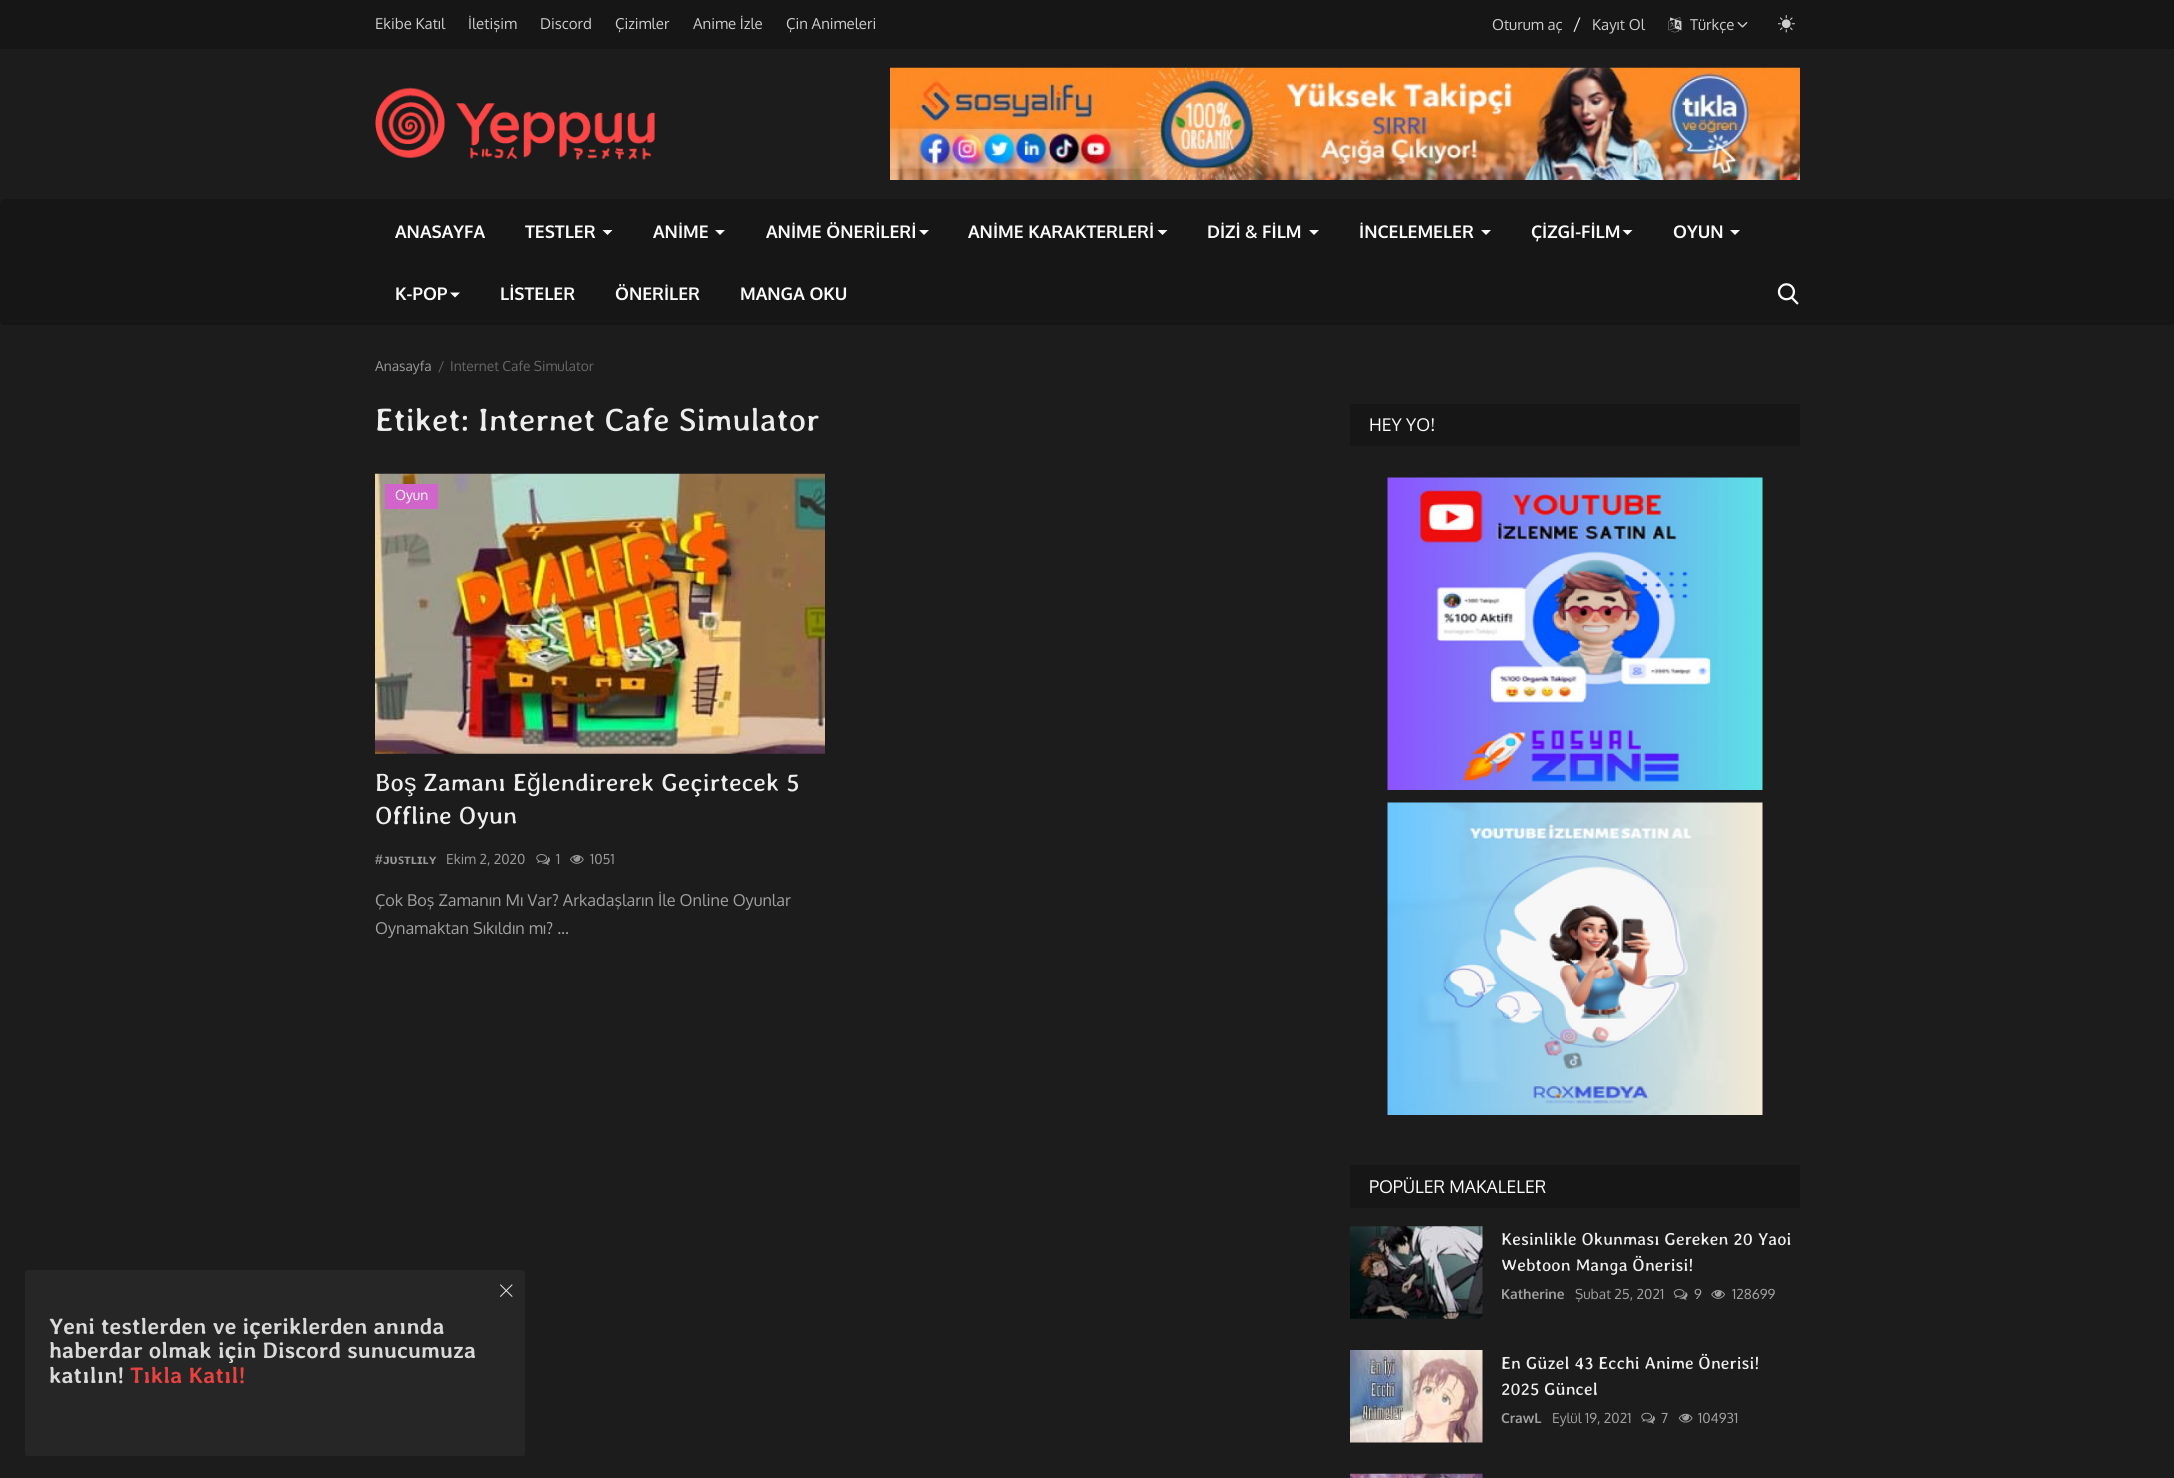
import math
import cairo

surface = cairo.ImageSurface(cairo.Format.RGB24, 2174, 1478)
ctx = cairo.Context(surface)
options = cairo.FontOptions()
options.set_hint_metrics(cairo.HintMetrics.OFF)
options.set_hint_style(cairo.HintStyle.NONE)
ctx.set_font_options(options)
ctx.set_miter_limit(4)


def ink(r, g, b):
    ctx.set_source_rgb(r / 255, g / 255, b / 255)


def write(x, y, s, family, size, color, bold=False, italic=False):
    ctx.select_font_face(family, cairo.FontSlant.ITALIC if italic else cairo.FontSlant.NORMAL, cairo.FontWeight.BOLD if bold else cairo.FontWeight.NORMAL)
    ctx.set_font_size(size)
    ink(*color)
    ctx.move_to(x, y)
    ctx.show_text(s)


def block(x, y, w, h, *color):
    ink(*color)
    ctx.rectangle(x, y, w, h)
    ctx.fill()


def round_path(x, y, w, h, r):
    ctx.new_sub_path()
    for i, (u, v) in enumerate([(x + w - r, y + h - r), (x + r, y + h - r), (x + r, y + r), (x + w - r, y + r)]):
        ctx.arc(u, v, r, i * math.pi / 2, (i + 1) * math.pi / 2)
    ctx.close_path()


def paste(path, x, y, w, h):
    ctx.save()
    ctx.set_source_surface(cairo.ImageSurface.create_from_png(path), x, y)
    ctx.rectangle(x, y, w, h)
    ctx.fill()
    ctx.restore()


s1 = dict(family="Oxygen", size=15, color=(204, 204, 204))
s2 = dict(family="Oxygen", size=17.5, color=(238, 238, 238))
s3 = dict(family="Oxygen", size=17.5, color=(251, 251, 251), bold=True)
s4 = dict(family="Averia Libre", size=22.5, color=(217, 217, 217), bold=True)
s5 = dict(family="Averia Libre", size=22.5, color=(231, 65, 64), bold=True)
s6 = dict(family="Oxygen", size=13.75, color=(153, 153, 153))
s7 = dict(family="Oxygen", size=13.75, color=(102, 102, 102))
s8 = dict(family="Averia Libre", size=32.5, color=(238, 238, 238))
s9 = dict(family="Oxygen", size=13.75, color=(251, 251, 251))
s10 = dict(family="Averia Libre", size=25, color=(238, 238, 238))
s11 = dict(family="Liberation Sans", size=25, color=(238, 238, 238))
s12 = dict(family="Liberation Sans", size=13.75, color=(153, 153, 153), bold=True)
s13 = dict(family="Noto Sans SemiBold", size=13.75, color=(153, 153, 153))
s14 = dict(family="Oxygen", size=16.25, color=(160, 160, 160))
s15 = dict(family="Oxygen", size=17.5, color=(251, 251, 251))
s16 = dict(family="Averia Libre", size=17.5, color=(238, 238, 238))
s17 = dict(family="Oxygen", size=13.75, color=(160, 160, 160), bold=True)
s18 = dict(family="Oxygen", size=13.75, color=(160, 160, 160))

ink(28, 28, 28)
ctx.paint()
block(0, 0, 2174, 49, 22, 22, 22)
write(375, 29, "Ekibe Katıl", **s1)
write(468, 29, "İletişim", **s1)
write(540, 29, "Discord", **s1)
write(615, 29, "Çizimler", **s1)
write(693, 29, "Anime İzle", **s1)
write(786, 29, "Çin Animeleri", **s1)
write(1492, 30, "Oturum aç", **s1)
write(1573, 30, "/", **s2)
write(1592, 30, "Kayıt Ol", **s1)
paste("pic1.png", 1668, 17, 14, 16)
write(1690, 30, "Türkçe", **s1)
paste("pic2.png", 1737, 22, 11, 6)
paste("pic3.png", 1778, 15, 17, 18)
paste("pic4.png", 375, 87, 280, 73)
paste("pic5.png", 890, 67, 910, 113)
ink(22, 22, 22)
round_path(0, 199, 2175, 126, 5)
ctx.fill()
block(2172, 199, 1, 1, 22, 22, 22)
write(395, 238, "ANASAYFA", **s3)
write(525, 238, "TESTLER", **s3)
ctx.new_path()
ctx.move_to(602.5, 230)
ctx.line_to(612.5, 230)
ctx.line_to(607.5, 235)
ctx.close_path()
ctx.fill()
write(653, 238, "ANİME", **s3)
ctx.new_path()
ctx.move_to(715, 230)
ctx.line_to(725, 230)
ctx.line_to(720, 235)
ctx.close_path()
ctx.fill()
write(766, 238, "ANİME ÖNERİLERİ", **s3)
ctx.new_path()
ctx.move_to(919, 230)
ctx.line_to(929, 230)
ctx.line_to(924, 235)
ctx.close_path()
ctx.fill()
write(968, 238, "ANİME KARAKTERLERİ", **s3)
ctx.new_path()
ctx.move_to(1157.5, 230)
ctx.line_to(1167.5, 230)
ctx.line_to(1162.5, 235)
ctx.close_path()
ctx.fill()
write(1207, 238, "DİZİ & FİLM", **s3)
ctx.new_path()
ctx.move_to(1309, 230)
ctx.line_to(1319, 230)
ctx.line_to(1314, 235)
ctx.close_path()
ctx.fill()
write(1359, 238, "İNCELEMELER", **s3)
ctx.new_path()
ctx.move_to(1481, 230)
ctx.line_to(1491, 230)
ctx.line_to(1486, 235)
ctx.close_path()
ctx.fill()
write(1531, 238, "ÇİZGİ-FİLM", **s3)
ctx.new_path()
ctx.move_to(1622.5, 230)
ctx.line_to(1632.5, 230)
ctx.line_to(1627.5, 235)
ctx.close_path()
ctx.fill()
write(1673, 238, "OYUN", **s3)
ctx.new_path()
ctx.move_to(1730, 230)
ctx.line_to(1740, 230)
ctx.line_to(1735, 235)
ctx.close_path()
ctx.fill()
write(395, 300, "K-POP", **s3)
ctx.new_path()
ctx.move_to(450, 292.5)
ctx.line_to(460, 292.5)
ctx.line_to(455, 297.5)
ctx.close_path()
ctx.fill()
write(500, 300, "LİSTELER", **s3)
write(615, 300, "ÖNERİLER", **s3)
write(740, 300, "MANGA OKU", **s3)
paste("pic6.png", 1777, 283, 22, 22)
ink(38, 38, 38)
round_path(25, 1270, 500, 186, 2.5)
ctx.fill()
paste("pic7.png", 500, 1284, 13, 13)
write(49, 1334, "Yeni testlerden ve içeriklerden anında", **s4)
write(49, 1358, "haberdar olmak için Discord sunucumuza", **s4)
write(49, 1383, "katılın!", **s4)
write(130, 1383, "Tıkla Katıl!", **s5)
write(375, 371, "Anasayfa", **s6)
write(438, 371, "/", **s7)
write(450, 371, "Internet Cafe Simulator", **s7)
write(375, 431, "Etiket: Internet Cafe Simulator", **s8)
paste("pic8.png", 375, 473, 450, 281)
block(385, 484, 53, 25, 209, 101, 203)
write(395, 500, "Oyun", **s9)
write(375, 791, "Bo", **s10)
write(404, 791, "ş", **s11)
write(423, 791, "Zamanı E", **s10)
write(527, 791, "ğ", **s11)
write(541, 791, "lendirerek Geçirtecek 5", **s10)
write(375, 824, "Offline Oyun", **s10)
write(375, 864, "#ᴊᴜ", **s12)
write(398, 864, "ꜱ", **s13)
write(404, 864, "ᴛʟɪʟʏ", **s12)
write(446, 864, "Ekim 2, 2020", **s6)
paste("pic9.png", 536, 854, 14, 11)
write(556, 864, "1", **s6)
paste("pic10.png", 570, 855, 14, 9)
write(590, 864, "1051", **s6)
write(375, 906, "Çok Boş Zamanın Mı Var? Arkadaşların İle Online Oyunlar", **s14)
write(375, 934, "Oynamaktan Sıkıldın mı? ...", **s14)
block(1350, 404, 450, 42, 22, 22, 22)
write(1369, 431, "HEY YO!", **s15)
paste("pic11.png", 1387, 477, 376, 313)
paste("pic12.png", 1387, 802, 376, 313)
block(1350, 1165, 450, 43, 22, 22, 22)
write(1369, 1193, "POPÜLER MAKALELER", **s15)
block(1350, 1226, 133, 93, 25, 25, 25)
paste("pic13.png", 1350, 1226, 133, 93)
write(1501, 1245, "Kesinlikle Okunması Gereken 20 Yaoi", **s16)
write(1501, 1271, "Webtoon Manga Önerisi!", **s16)
write(1501, 1299, "Katherine", **s17)
write(1575, 1299, "Şubat 25, 2021", **s18)
paste("pic14.png", 1673, 1289, 15, 11)
write(1694, 1299, "9", **s18)
paste("pic15.png", 1711, 1290, 14, 9)
write(1732, 1299, "128699", **s18)
block(1350, 1350, 133, 93, 25, 25, 25)
paste("pic16.png", 1350, 1350, 133, 93)
write(1501, 1369, "En Güzel 43 Ecchi Anime Önerisi!", **s16)
write(1501, 1395, "2025 Güncel", **s16)
write(1501, 1423, "CrawL", **s17)
write(1552, 1423, "Eylül 19, 2021", **s18)
paste("pic17.png", 1641, 1412, 14, 12)
write(1661, 1423, "7", **s18)
paste("pic18.png", 1678, 1413, 15, 10)
write(1698, 1423, "104931", **s18)
block(1482, 1474, 1, 4, 25, 25, 25)
paste("pic19.png", 1350, 1473, 133, 5)
surface.write_to_png("screenshot.png")
